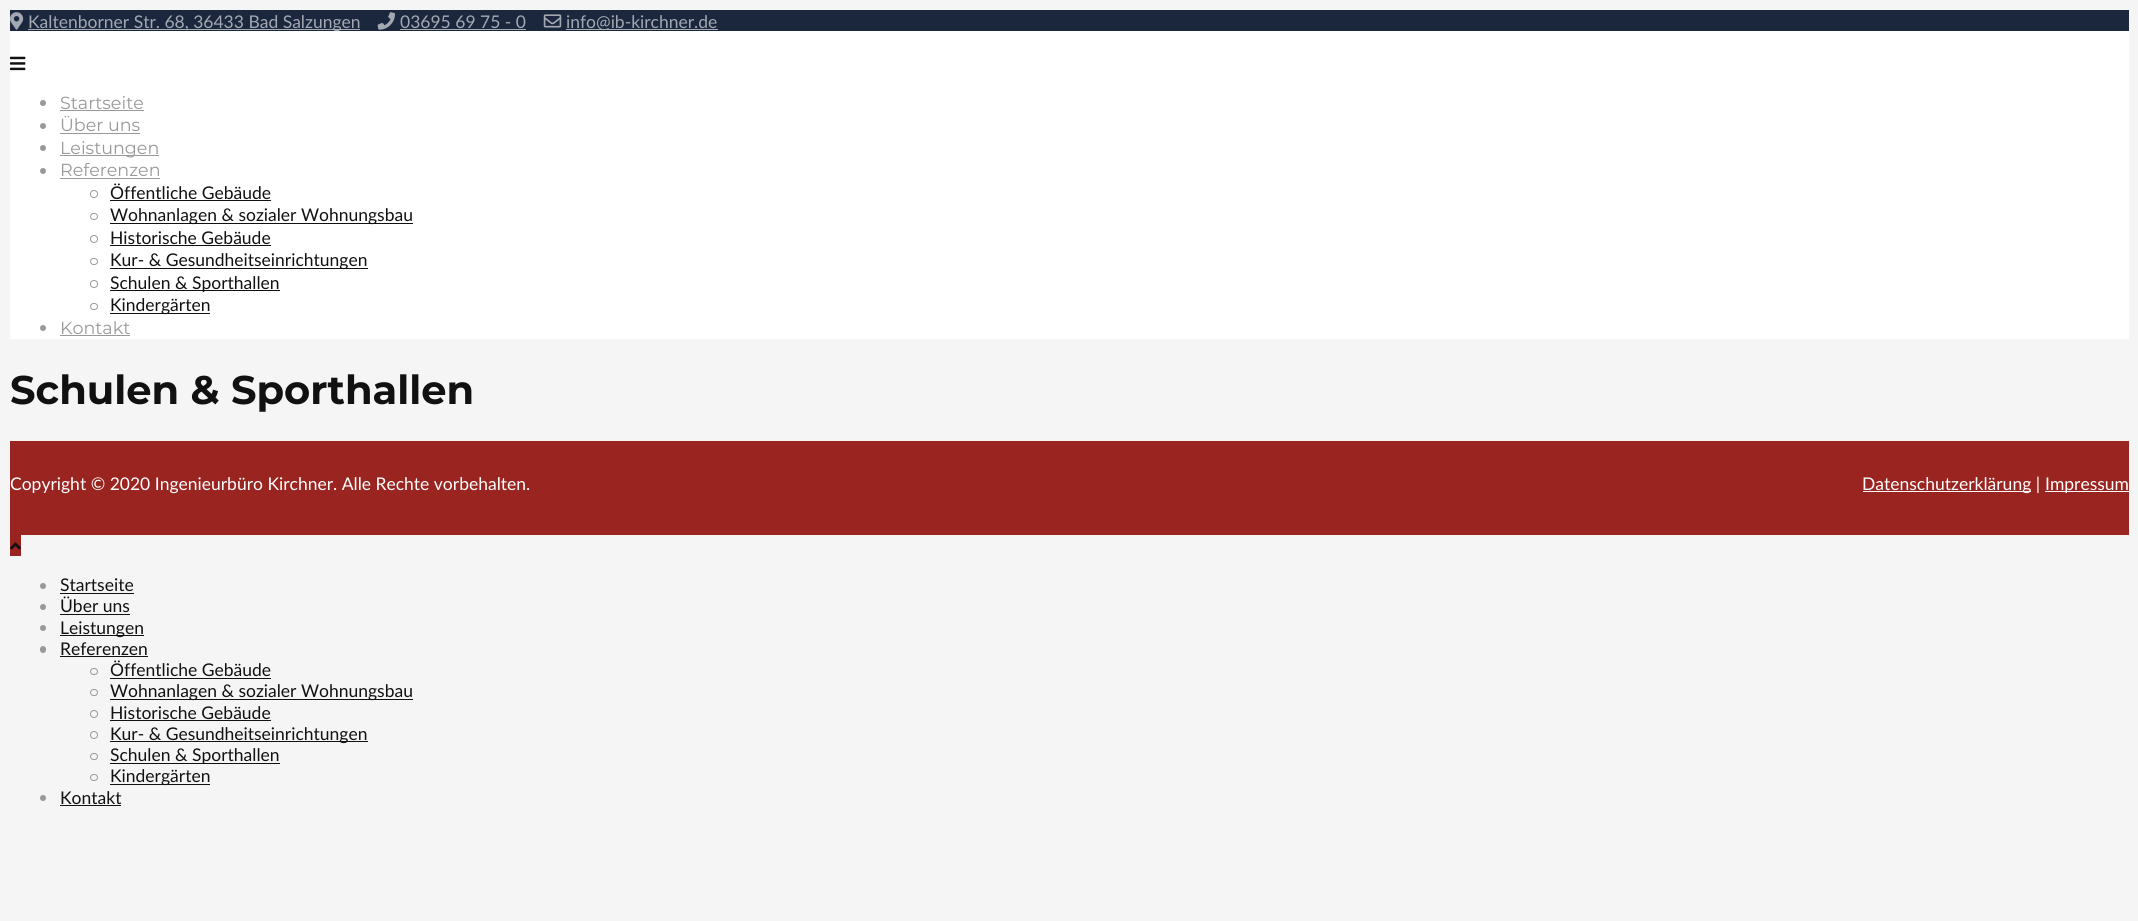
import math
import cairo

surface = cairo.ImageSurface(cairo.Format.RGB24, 2138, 921)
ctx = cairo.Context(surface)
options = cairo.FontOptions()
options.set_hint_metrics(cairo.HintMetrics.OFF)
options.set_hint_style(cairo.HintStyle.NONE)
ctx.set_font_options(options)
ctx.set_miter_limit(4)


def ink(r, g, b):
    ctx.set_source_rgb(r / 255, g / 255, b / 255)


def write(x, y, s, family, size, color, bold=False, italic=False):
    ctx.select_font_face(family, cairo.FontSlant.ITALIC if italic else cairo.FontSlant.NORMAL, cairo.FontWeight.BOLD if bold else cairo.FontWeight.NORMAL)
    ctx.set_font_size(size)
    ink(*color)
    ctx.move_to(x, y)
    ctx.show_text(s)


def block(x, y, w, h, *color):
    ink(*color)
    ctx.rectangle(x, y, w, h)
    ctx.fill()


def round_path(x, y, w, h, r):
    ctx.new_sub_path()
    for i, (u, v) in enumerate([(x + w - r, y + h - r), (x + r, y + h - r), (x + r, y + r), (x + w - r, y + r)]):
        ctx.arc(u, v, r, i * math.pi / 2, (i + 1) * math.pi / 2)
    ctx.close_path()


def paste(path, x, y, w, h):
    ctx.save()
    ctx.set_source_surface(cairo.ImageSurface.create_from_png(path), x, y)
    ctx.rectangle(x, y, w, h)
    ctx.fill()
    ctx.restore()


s1 = dict(family="Lato", size=17.5, color=(163, 168, 178))
s2 = dict(family="Montserrat", size=17.5, color=(153, 153, 153))
s3 = dict(family="Lato", size=17.5, color=(17, 17, 17))
s4 = dict(family="Montserrat", size=40, color=(17, 17, 17), bold=True)
s5 = dict(family="Lato", size=17.5, color=(255, 255, 255))

ink(245, 245, 245)
ctx.paint()
block(10, 10, 2119, 21, 27, 39, 61)
paste("pic1.png", 10, 12, 14, 18)
block(28, 29, 332, 1, 163, 168, 178)
block(10, 31, 2119, 308, 255, 255, 255)
write(28, 28, "Kaltenborner Str. 68, 36433 Bad Salzungen", **s1)
paste("pic2.png", 377, 12, 18, 18)
write(400, 28, "03695 69 75 - 0", **s1)
block(400, 29, 126, 1, 163, 168, 178)
paste("pic3.png", 543, 14, 19, 14)
block(566, 29, 152, 1, 163, 168, 178)
write(566, 28, "info@ib-kirchner.de", **s1)
paste("pic4.png", 10, 56, 16, 15)
ink(153, 153, 153)
ctx.arc(43, 103, 3, 0, 2 * math.pi)
ctx.fill()
write(60, 109, "Startseite", **s2)
block(60, 110, 84, 1, 153, 153, 153)
ctx.new_path()
ctx.arc(43, 126, 3, 0, 2 * math.pi)
ctx.fill()
write(60, 131, "Über uns", **s2)
block(60, 133, 80, 1, 153, 153, 153)
ctx.new_path()
ctx.arc(43, 148, 3, 0, 2 * math.pi)
ctx.fill()
block(60, 155, 99, 1, 153, 153, 153)
write(60, 154, "Leistungen", **s2)
ctx.new_path()
ctx.arc(43, 171, 3, 0, 2 * math.pi)
ctx.fill()
write(60, 176, "Referenzen", **s2)
block(60, 178, 100, 1, 153, 153, 153)
ctx.new_path()
ctx.arc(94, 194, 3.5, 0, 2 * math.pi)
ctx.set_line_width(1)
ctx.stroke()
write(110, 199, "Öffentliche Gebäude", **s3)
block(110, 200, 161, 1, 17, 17, 17)
round_path(90.5, 213.5, 7, 6, 3)
ink(153, 153, 153)
ctx.stroke()
block(110, 223, 303, 1, 17, 17, 17)
write(110, 221, "Wohnanlagen & sozialer Wohnungsbau", **s3)
ctx.new_path()
ctx.arc(94, 239, 3.5, 0, 2 * math.pi)
ink(153, 153, 153)
ctx.stroke()
write(110, 244, "Historische Gebäude", **s3)
block(110, 245, 161, 1, 17, 17, 17)
round_path(90.5, 258.5, 7, 6, 3)
ink(153, 153, 153)
ctx.stroke()
block(110, 268, 258, 1, 17, 17, 17)
write(110, 266, "Kur- & Gesundheitseinrichtungen", **s3)
ctx.new_path()
ctx.arc(94, 284, 3.5, 0, 2 * math.pi)
ink(153, 153, 153)
ctx.stroke()
block(110, 290, 170, 1, 17, 17, 17)
write(110, 289, "Schulen & Sporthallen", **s3)
round_path(90.5, 303.5, 7, 6, 3)
ink(153, 153, 153)
ctx.stroke()
block(110, 313, 100, 1, 17, 17, 17)
write(110, 311, "Kindergärten", **s3)
ink(153, 153, 153)
ctx.new_path()
ctx.arc(43, 328, 3, 0, 2 * math.pi)
ctx.fill()
write(60, 334, "Kontakt", **s2)
block(60, 335, 70, 1, 153, 153, 153)
write(10, 404, "Schulen & Sporthallen", **s4)
block(10, 441, 2119, 94, 154, 36, 32)
write(10, 490, "Copyright © 2020 Ingenieurbüro Kirchner. Alle Rechte vorbehalten.", **s5)
block(1863, 491, 168, 1, 255, 255, 255)
write(1862, 490, "Datenschutzerklärung |", **s5)
block(2045, 491, 84, 1, 255, 255, 255)
write(2045, 490, "Impressum", **s5)
block(10, 535, 11, 21, 154, 36, 32)
paste("pic5.png", 10, 542, 11, 8)
ink(153, 153, 153)
ctx.arc(43, 586, 3, 0, 2 * math.pi)
ctx.fill()
write(60, 591, "Startseite", **s3)
block(60, 593, 74, 1, 17, 17, 17)
ink(153, 153, 153)
ctx.new_path()
ctx.arc(43, 607, 3, 0, 2 * math.pi)
ctx.fill()
write(60, 612, "Über uns", **s3)
block(60, 614, 70, 1, 17, 17, 17)
ink(153, 153, 153)
ctx.new_path()
ctx.arc(43, 628, 3, 0, 2 * math.pi)
ctx.fill()
block(60, 635, 84, 1, 17, 17, 17)
write(60, 634, "Leistungen", **s3)
ink(153, 153, 153)
round_path(40, 646, 6, 7, 3)
ctx.fill()
write(60, 655, "Referenzen", **s3)
block(60, 656, 88, 1, 17, 17, 17)
round_path(90.5, 668.5, 7, 6, 3)
ink(153, 153, 153)
ctx.stroke()
write(110, 676, "Öffentliche Gebäude", **s3)
block(110, 678, 161, 1, 17, 17, 17)
round_path(90.5, 689.5, 7, 6, 3)
ink(153, 153, 153)
ctx.stroke()
block(110, 699, 303, 1, 17, 17, 17)
write(110, 697, "Wohnanlagen & sozialer Wohnungsbau", **s3)
ctx.new_path()
ctx.arc(94, 714, 3.5, 0, 2 * math.pi)
ink(153, 153, 153)
ctx.stroke()
write(110, 719, "Historische Gebäude", **s3)
block(110, 720, 161, 1, 17, 17, 17)
ctx.new_path()
ctx.arc(94, 735, 3.5, 0, 2 * math.pi)
ink(153, 153, 153)
ctx.stroke()
block(110, 741, 258, 1, 17, 17, 17)
write(110, 740, "Kur- & Gesundheitseinrichtungen", **s3)
round_path(90.5, 753.5, 7, 6, 3)
ink(153, 153, 153)
ctx.stroke()
block(110, 763, 170, 1, 17, 17, 17)
write(110, 761, "Schulen & Sporthallen", **s3)
round_path(90.5, 774.5, 7, 6, 3)
ink(153, 153, 153)
ctx.stroke()
block(110, 784, 100, 1, 17, 17, 17)
write(110, 782, "Kindergärten", **s3)
ink(153, 153, 153)
ctx.new_path()
ctx.arc(43, 798, 3, 0, 2 * math.pi)
ctx.fill()
write(60, 804, "Kontakt", **s3)
block(60, 805, 61, 1, 17, 17, 17)
surface.write_to_png("screenshot.png")
